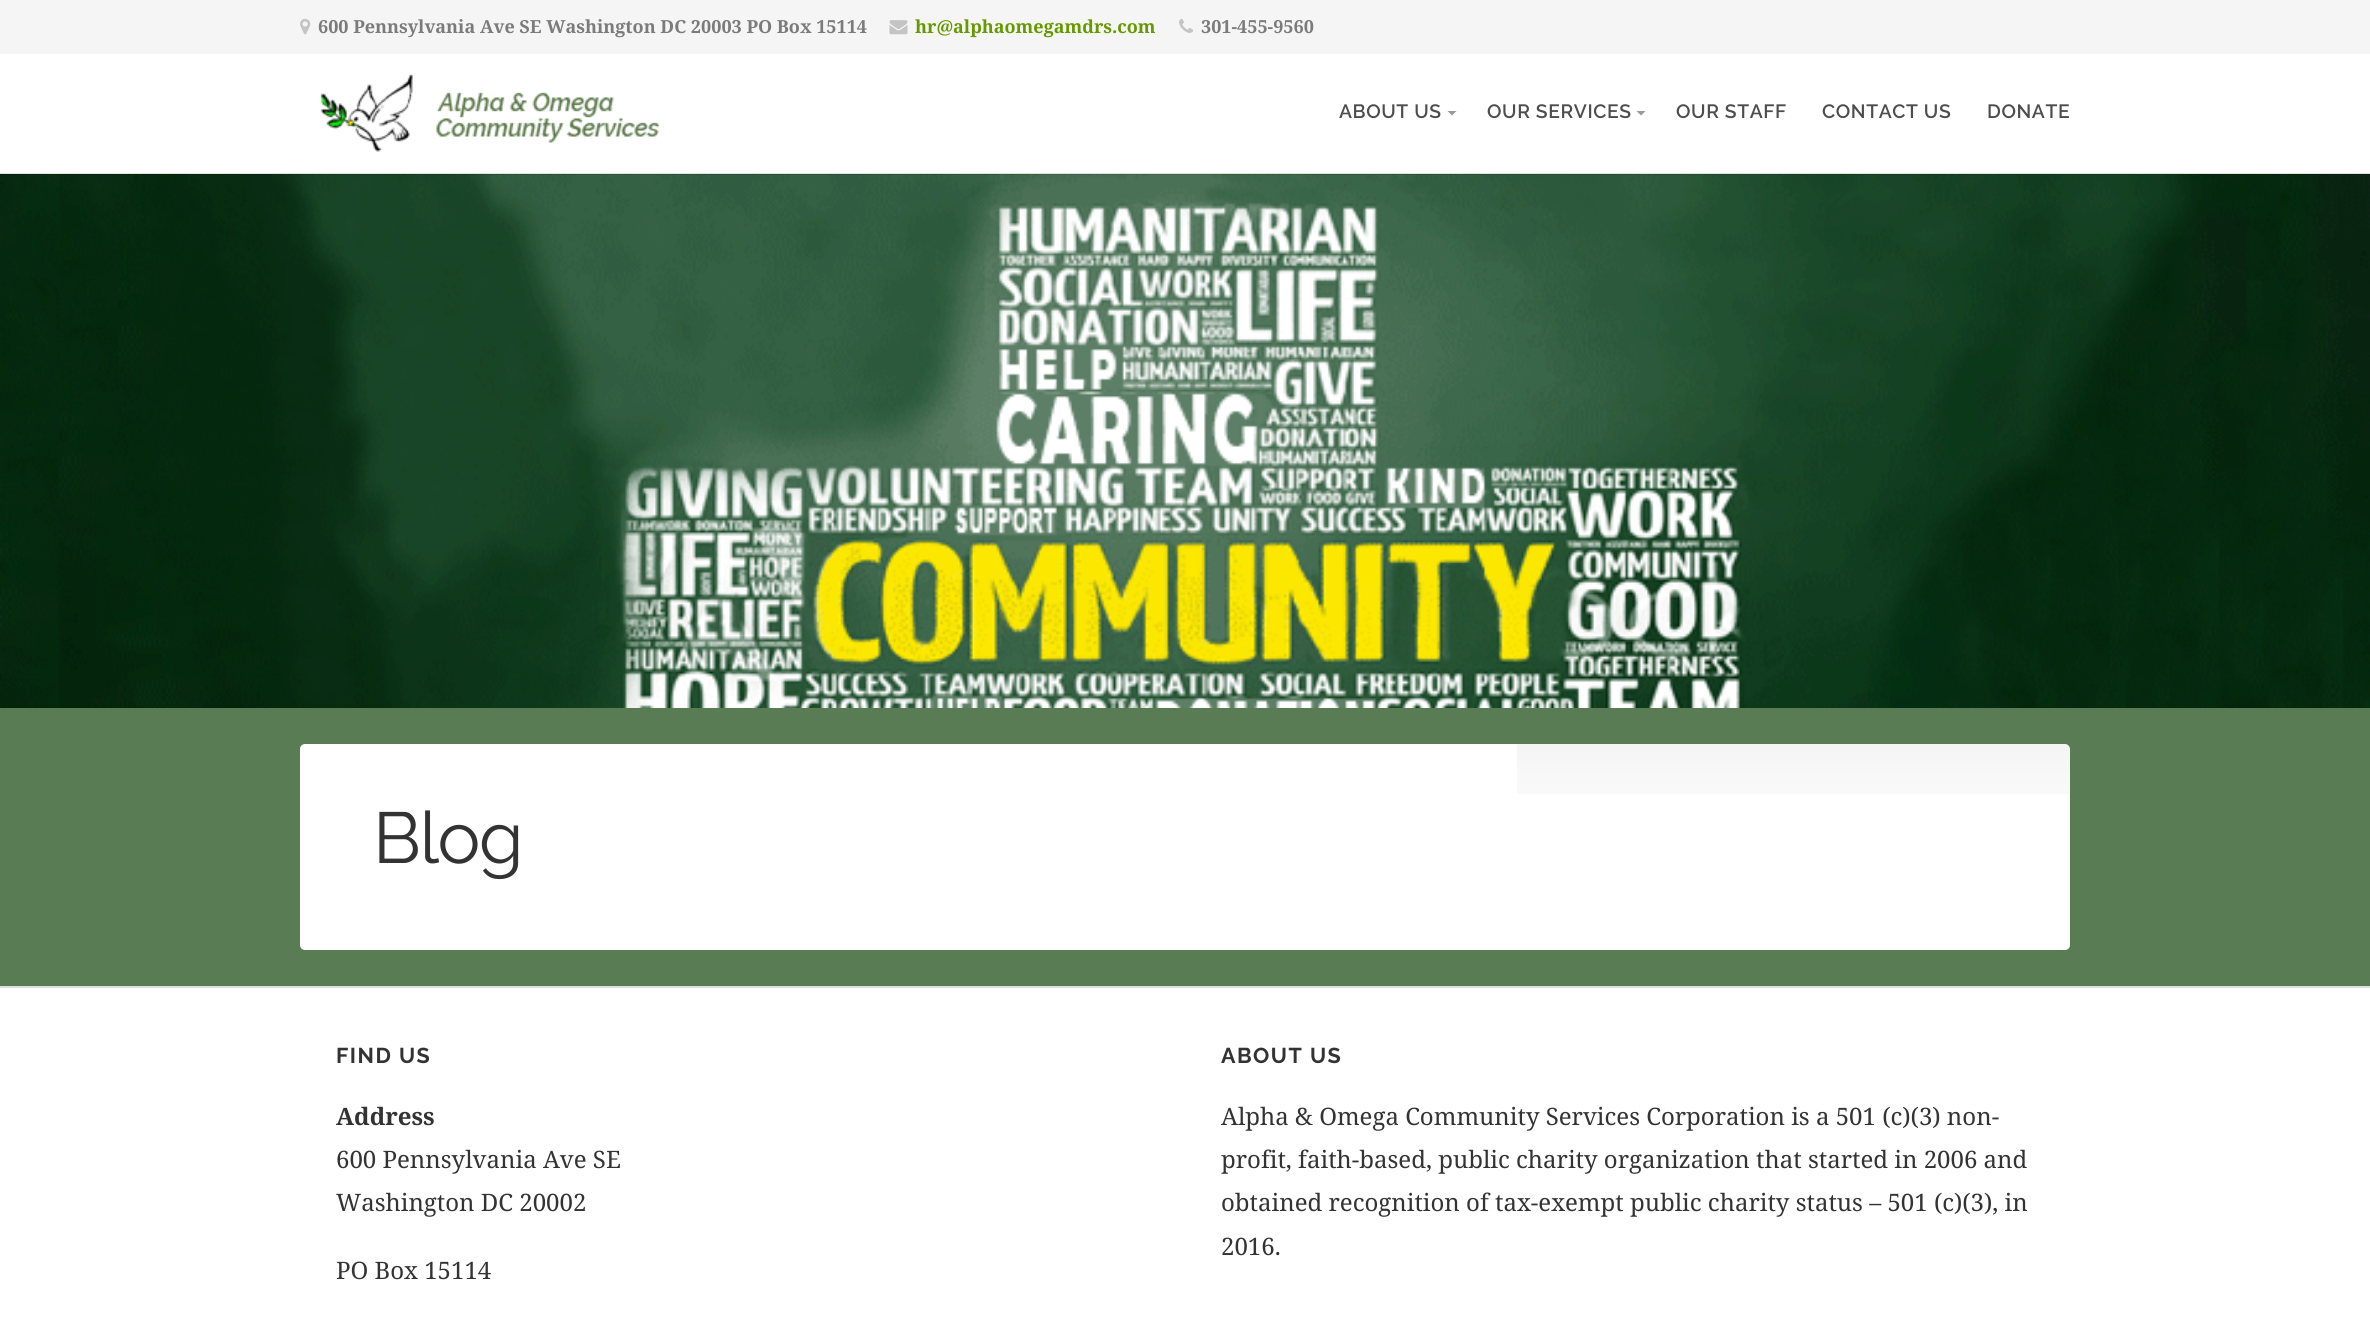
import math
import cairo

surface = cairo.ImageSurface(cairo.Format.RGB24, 2370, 1327)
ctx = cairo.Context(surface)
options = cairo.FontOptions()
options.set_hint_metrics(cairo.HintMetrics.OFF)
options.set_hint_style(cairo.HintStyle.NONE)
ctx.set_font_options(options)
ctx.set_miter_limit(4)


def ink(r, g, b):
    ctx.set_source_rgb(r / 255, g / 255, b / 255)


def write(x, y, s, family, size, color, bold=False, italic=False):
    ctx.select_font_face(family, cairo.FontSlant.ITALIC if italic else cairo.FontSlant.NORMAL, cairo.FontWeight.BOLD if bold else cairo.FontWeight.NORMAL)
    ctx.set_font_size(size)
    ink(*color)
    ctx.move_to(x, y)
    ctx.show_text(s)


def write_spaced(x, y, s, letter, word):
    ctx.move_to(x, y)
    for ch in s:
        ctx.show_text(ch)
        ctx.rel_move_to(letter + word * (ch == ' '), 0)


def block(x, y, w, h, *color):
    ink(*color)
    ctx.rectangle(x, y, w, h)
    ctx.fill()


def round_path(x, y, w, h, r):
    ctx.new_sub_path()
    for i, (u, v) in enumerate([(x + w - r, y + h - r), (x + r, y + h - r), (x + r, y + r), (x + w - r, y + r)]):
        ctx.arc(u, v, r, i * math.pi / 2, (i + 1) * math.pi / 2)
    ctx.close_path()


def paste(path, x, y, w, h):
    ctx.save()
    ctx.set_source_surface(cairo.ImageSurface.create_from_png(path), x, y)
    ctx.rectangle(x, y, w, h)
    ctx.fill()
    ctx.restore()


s1 = dict(family="Noto Serif", size=18, color=(123, 123, 123), bold=True)
s2 = dict(family="Noto Serif", size=18, color=(102, 153, 0), bold=True)
s3 = dict(family="Noto Serif", size=24, color=(51, 51, 51), bold=True)
s4 = dict(family="Noto Serif", size=24, color=(51, 51, 51))

ink(89, 124, 84)
ctx.paint()
block(0, 54, 2370, 120, 255, 255, 255)
paste("pic5.png", 0, 174, 2370, 534)
ctx.set_source_rgba(0, 0, 0, 0.12)
ctx.rectangle(0, 173, 2370, 2)
ctx.fill()
block(0, 0, 2370, 54, 245, 245, 245)
paste("pic1.png", 300, 18, 11, 17)
write(318, 33, "600 Pennsylvania Ave SE Washington DC 20003 PO Box 15114", **s1)
paste("pic2.png", 889, 20, 19, 15)
write(915, 33, "hr@alphaomegamdrs.com", **s2)
paste("pic3.png", 1179, 19, 14, 14)
write(1201, 33, "301-455-9560", **s1)
paste("pic4.png", 320, 74, 340, 78)
ctx.select_font_face("Raleway SemiBold")
ctx.set_font_size(19.25)
ink(77, 77, 77)
write_spaced(1339, 118, "ABOUT US", 0.6, 0)
ink(153, 153, 153)
ctx.new_path()
ctx.move_to(1447.5, 111)
ctx.line_to(1456.5, 111)
ctx.line_to(1452, 115.5)
ctx.close_path()
ctx.fill()
ink(77, 77, 77)
write_spaced(1487, 118, "OUR SERVICES", 0.6, 0)
ink(153, 153, 153)
ctx.new_path()
ctx.move_to(1636.5, 111)
ctx.line_to(1645.5, 111)
ctx.line_to(1641, 115.5)
ctx.close_path()
ctx.fill()
ink(77, 77, 77)
write_spaced(1676, 118, "OUR STAFF", 0.6, 0)
write_spaced(1822, 118, "CONTACT US", 0.6, 0)
write_spaced(1987, 118, "DONATE", 0.6, 0)
ink(255, 255, 255)
round_path(300, 744, 1770, 206, 5)
ctx.fill()
gradient = cairo.LinearGradient(1793, 852, 1793, 744)
gradient.add_color_stop_rgba(0, 0, 0, 0, 0)
gradient.add_color_stop_rgba(1, 0, 0, 0, 0.04)
ctx.set_source(gradient)
ctx.rectangle(1517, 744, 553, 50)
ctx.fill()
ctx.select_font_face("Raleway")
ctx.set_font_size(72)
ink(51, 51, 51)
write_spaced(373, 863, "Blog", -1.5, 0)
block(0, 988, 2370, 339, 255, 255, 255)
block(0, 986, 2370, 2, 224, 224, 224)
ctx.select_font_face("Raleway", cairo.FontSlant.NORMAL, cairo.FontWeight.BOLD)
ctx.set_font_size(21.5)
ink(51, 51, 51)
write_spaced(336, 1063, "FIND US", 1.5, 0)
write(336, 1125, "Address", **s3)
write(336, 1168, "600 Pennsylvania Ave SE", **s4)
write(336, 1211, "Washington DC 20002", **s4)
write(336, 1279, "PO Box 15114", **s4)
ctx.select_font_face("Raleway", cairo.FontSlant.NORMAL, cairo.FontWeight.BOLD)
ctx.set_font_size(21.5)
write_spaced(1221, 1063, "ABOUT US", 1.5, 0)
write(1221, 1125, "Alpha & Omega Community Services Corporation is a 501 (c)(3) non-", **s4)
write(1221, 1168, "profit, faith-based, public charity organization that started in 2006 and", **s4)
write(1221, 1211, "obtained recognition of tax-exempt public charity status – 501 (c)(3), in", **s4)
write(1221, 1255, "2016.", **s4)
surface.write_to_png("screenshot.png")
